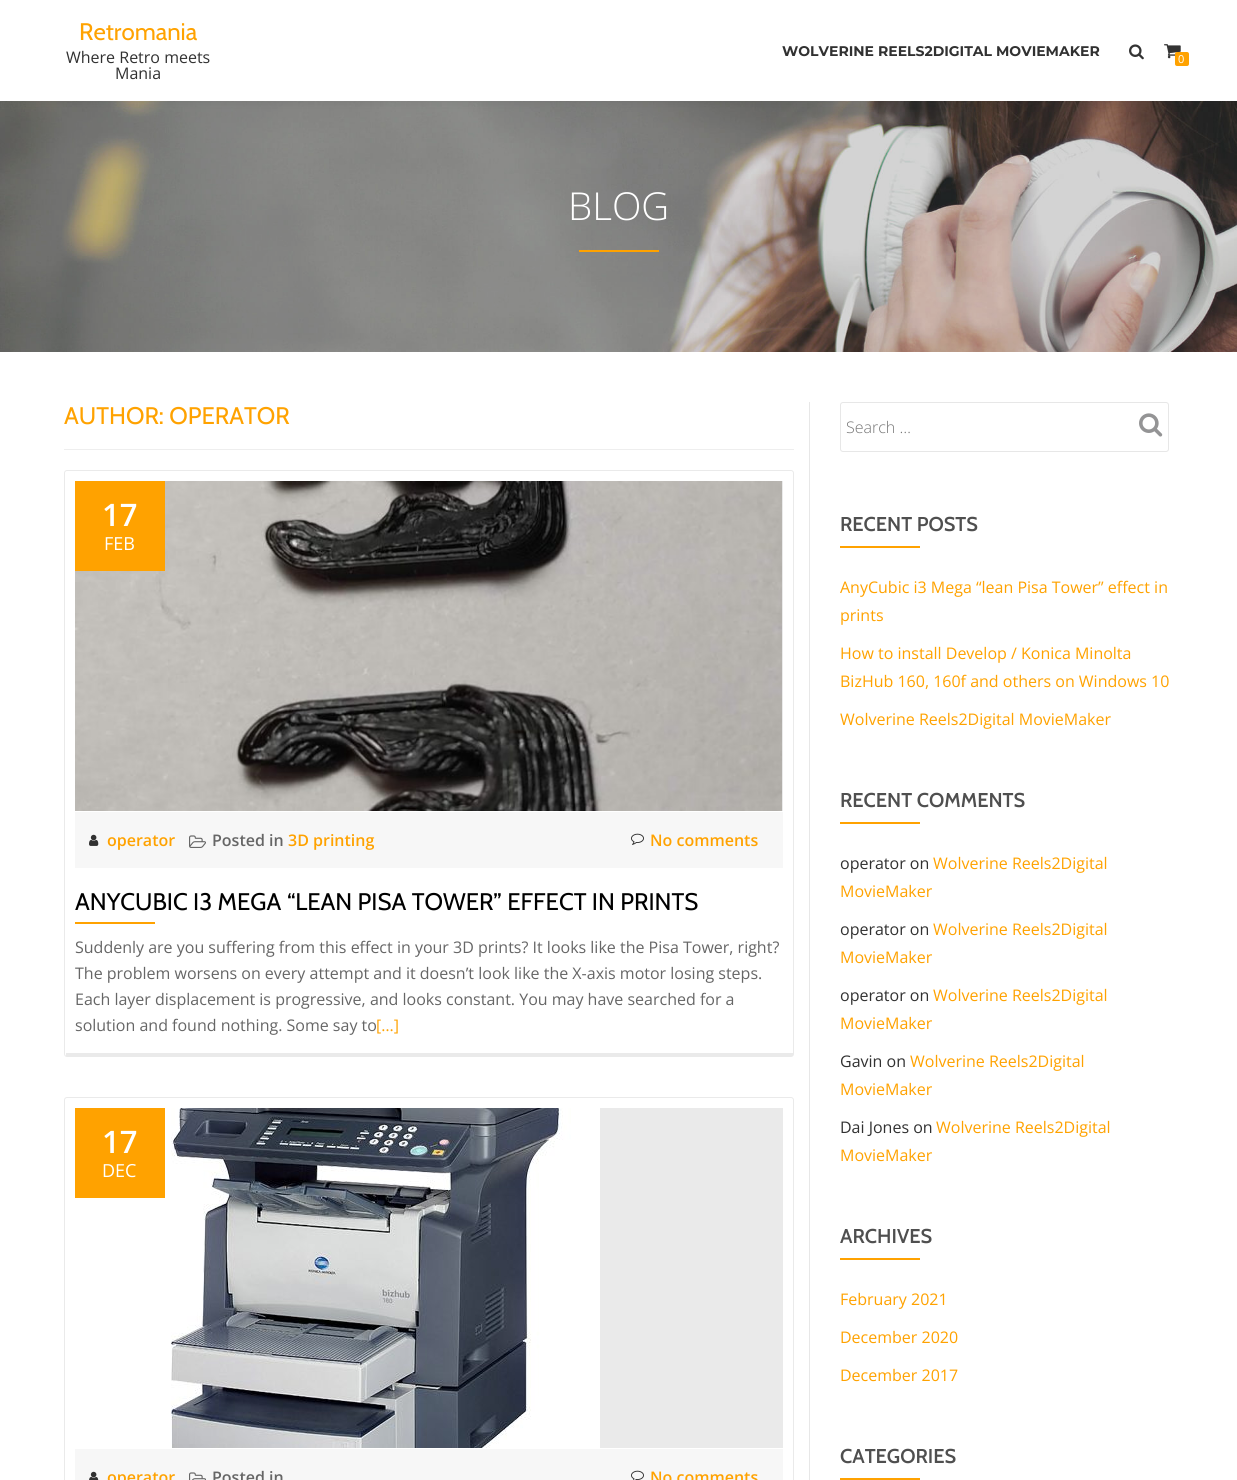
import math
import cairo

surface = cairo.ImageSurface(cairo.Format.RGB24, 1237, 1480)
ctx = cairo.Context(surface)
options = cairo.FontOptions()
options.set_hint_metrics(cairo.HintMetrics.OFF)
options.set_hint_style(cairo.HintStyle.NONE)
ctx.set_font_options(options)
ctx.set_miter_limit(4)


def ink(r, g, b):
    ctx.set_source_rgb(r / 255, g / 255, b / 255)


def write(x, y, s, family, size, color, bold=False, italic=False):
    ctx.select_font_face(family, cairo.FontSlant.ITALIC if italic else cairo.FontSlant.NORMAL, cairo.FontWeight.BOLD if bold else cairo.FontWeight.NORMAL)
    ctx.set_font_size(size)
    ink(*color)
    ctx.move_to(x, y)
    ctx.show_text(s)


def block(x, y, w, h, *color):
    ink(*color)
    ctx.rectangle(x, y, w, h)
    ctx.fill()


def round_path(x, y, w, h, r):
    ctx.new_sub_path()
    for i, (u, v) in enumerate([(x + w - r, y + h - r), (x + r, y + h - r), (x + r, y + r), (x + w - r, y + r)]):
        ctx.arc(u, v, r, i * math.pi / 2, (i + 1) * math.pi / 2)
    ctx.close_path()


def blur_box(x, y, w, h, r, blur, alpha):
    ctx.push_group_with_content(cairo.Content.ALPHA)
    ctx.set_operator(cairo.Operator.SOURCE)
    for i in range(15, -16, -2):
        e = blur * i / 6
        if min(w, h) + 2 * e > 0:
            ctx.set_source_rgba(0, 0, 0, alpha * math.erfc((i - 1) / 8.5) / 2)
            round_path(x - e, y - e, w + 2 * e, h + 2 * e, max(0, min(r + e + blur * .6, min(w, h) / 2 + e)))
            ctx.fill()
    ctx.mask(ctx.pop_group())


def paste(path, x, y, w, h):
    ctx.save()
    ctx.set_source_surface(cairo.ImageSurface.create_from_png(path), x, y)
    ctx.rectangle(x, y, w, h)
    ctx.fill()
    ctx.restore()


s1 = dict(family="Cabin", size=24, color=(255, 162, 0))
s2 = dict(family="Open Sans", size=16, color=(49, 49, 49))
s3 = dict(family="Montserrat", size=14, color=(49, 49, 49), bold=True)
s4 = dict(family="Open Sans", size=11, color=(255, 255, 255))
s5 = dict(family="Open Sans Light", size=38.5, color=(255, 255, 255))
s6 = dict(family="Open Sans SemiBold", size=31, color=(255, 255, 255))
s7 = dict(family="Open Sans", size=18, color=(255, 255, 255))
s8 = dict(family="Open Sans SemiBold", size=16, color=(255, 162, 0))
s9 = dict(family="Open Sans SemiBold", size=16, color=(102, 102, 102))
s10 = dict(family="Cabin", size=24, color=(0, 0, 0))
s11 = dict(family="Open Sans", size=16, color=(102, 102, 102))
s12 = dict(family="Open Sans", size=16, color=(255, 162, 0))
s13 = dict(family="Open Sans Light", size=16, color=(117, 117, 117))
s14 = dict(family="Cabin SemiBold", size=20, color=(79, 79, 79))

ink(255, 255, 255)
ctx.paint()
paste("pic3.png", 0, 101, 1237, 251)
ink(50, 50, 50)
blur_box(0, 2, 1237, 101, 0, 4, 0.08)
block(0, 0, 1237, 101, 255, 255, 255)
write(79, 40, "Retromania", **s1)
write(66, 63, "Where Retro meets", **s2)
write(115, 79, "Mania", **s2)
write(782, 56, "WOLVERINE REELS2DIGITAL MOVIEMAKER", **s3)
paste("pic1.png", 1129, 44, 15, 16)
paste("pic2.png", 1164, 44, 17, 15)
ink(255, 162, 0)
round_path(1175, 52, 14, 14, 2)
ctx.fill()
write(1178, 63, "0", **s4)
write(568, 220, "BLOG", **s5)
block(579, 250, 80, 2, 255, 162, 0)
block(64, 449, 730, 1, 238, 238, 238)
write(64, 424, "AUTHOR: OPERATOR", **s1)
round_path(64.5, 470.5, 729, 586, 2.5)
ink(234, 234, 234)
ctx.set_line_width(1)
ctx.stroke()
block(66, 1053, 727, 3, 234, 234, 234)
block(782, 481, 1, 330, 234, 234, 234)
paste("pic4.png", 75, 481, 707, 330)
block(75, 481, 90, 90, 255, 162, 0)
write(102, 526, "17", **s6)
write(104, 550, "FEB", **s7)
block(75, 812, 708, 56, 247, 247, 247)
paste("pic5.png", 89, 834, 10, 12)
write(107, 846, "operator", **s8)
paste("pic6.png", 189, 835, 17, 13)
write(212, 846, "Posted in", **s9)
write(288, 846, "3D printing", **s8)
paste("pic7.png", 631, 833, 13, 12)
write(650, 846, "No comments", **s8)
write(75, 910, "ANYCUBIC I3 MEGA “LEAN PISA TOWER” EFFECT IN PRINTS", **s10)
block(75, 922, 80, 2, 255, 162, 0)
write(75, 953, "Suddenly are you suffering from this effect in your 3D prints? It looks like the Pisa Tower, right?", **s11)
write(75, 979, "The problem worsens on every attempt and it doesn’t look like the X-axis motor losing steps.", **s11)
write(75, 1005, "Each layer displacement is progressive, and looks constant. You may have searched for a", **s11)
write(75, 1031, "solution and found nothing. Some say to", **s11)
write(376, 1031, "[…]", **s12)
round_path(64.5, 1097.5, 729, 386, 2.5)
ink(234, 234, 234)
ctx.stroke()
block(600, 1108, 183, 340, 234, 234, 234)
paste("pic8.png", 75, 1108, 525, 340)
block(75, 1108, 90, 90, 255, 162, 0)
write(102, 1153, "17", **s6)
write(102, 1177, "DEC", **s7)
block(75, 1449, 708, 31, 247, 247, 247)
paste("pic9.png", 89, 1471, 10, 9)
write(107, 1483, "operator", **s8)
paste("pic10.png", 189, 1472, 17, 8)
write(212, 1483, "Posted in", **s9)
paste("pic11.png", 631, 1470, 13, 10)
write(650, 1483, "No comments", **s8)
block(809, 402, 1, 1078, 231, 231, 231)
round_path(840.5, 402.5, 328, 49, 2.5)
ctx.stroke()
write(846, 433, "Search …", **s13)
paste("pic12.png", 1139, 413, 24, 24)
write(840, 531, "RECENT POSTS", **s14)
block(840, 546, 80, 2, 255, 162, 0)
write(840, 593, "AnyCubic i3 Mega “lean Pisa Tower” effect in", **s12)
write(840, 621, "prints", **s12)
write(840, 659, "How to install Develop / Konica Minolta", **s12)
write(840, 687, "BizHub 160, 160f and others on Windows 10", **s12)
write(840, 725, "Wolverine Reels2Digital MovieMaker", **s12)
write(840, 807, "RECENT COMMENTS", **s14)
block(840, 822, 80, 2, 255, 162, 0)
write(840, 869, "operator on", **s2)
write(933, 869, "Wolverine Reels2Digital", **s12)
write(840, 897, "MovieMaker", **s12)
write(840, 935, "operator on", **s2)
write(933, 935, "Wolverine Reels2Digital", **s12)
write(840, 963, "MovieMaker", **s12)
write(840, 1001, "operator on", **s2)
write(933, 1001, "Wolverine Reels2Digital", **s12)
write(840, 1029, "MovieMaker", **s12)
write(840, 1067, "Gavin on", **s2)
write(910, 1067, "Wolverine Reels2Digital", **s12)
write(840, 1095, "MovieMaker", **s12)
write(840, 1133, "Dai Jones on", **s2)
write(936, 1133, "Wolverine Reels2Digital", **s12)
write(840, 1161, "MovieMaker", **s12)
write(840, 1243, "ARCHIVES", **s14)
block(840, 1258, 80, 2, 255, 162, 0)
write(840, 1305, "February 2021", **s12)
write(840, 1343, "December 2020", **s12)
write(840, 1381, "December 2017", **s12)
write(840, 1463, "CATEGORIES", **s14)
block(840, 1478, 80, 2, 255, 162, 0)
surface.write_to_png("screenshot.png")
